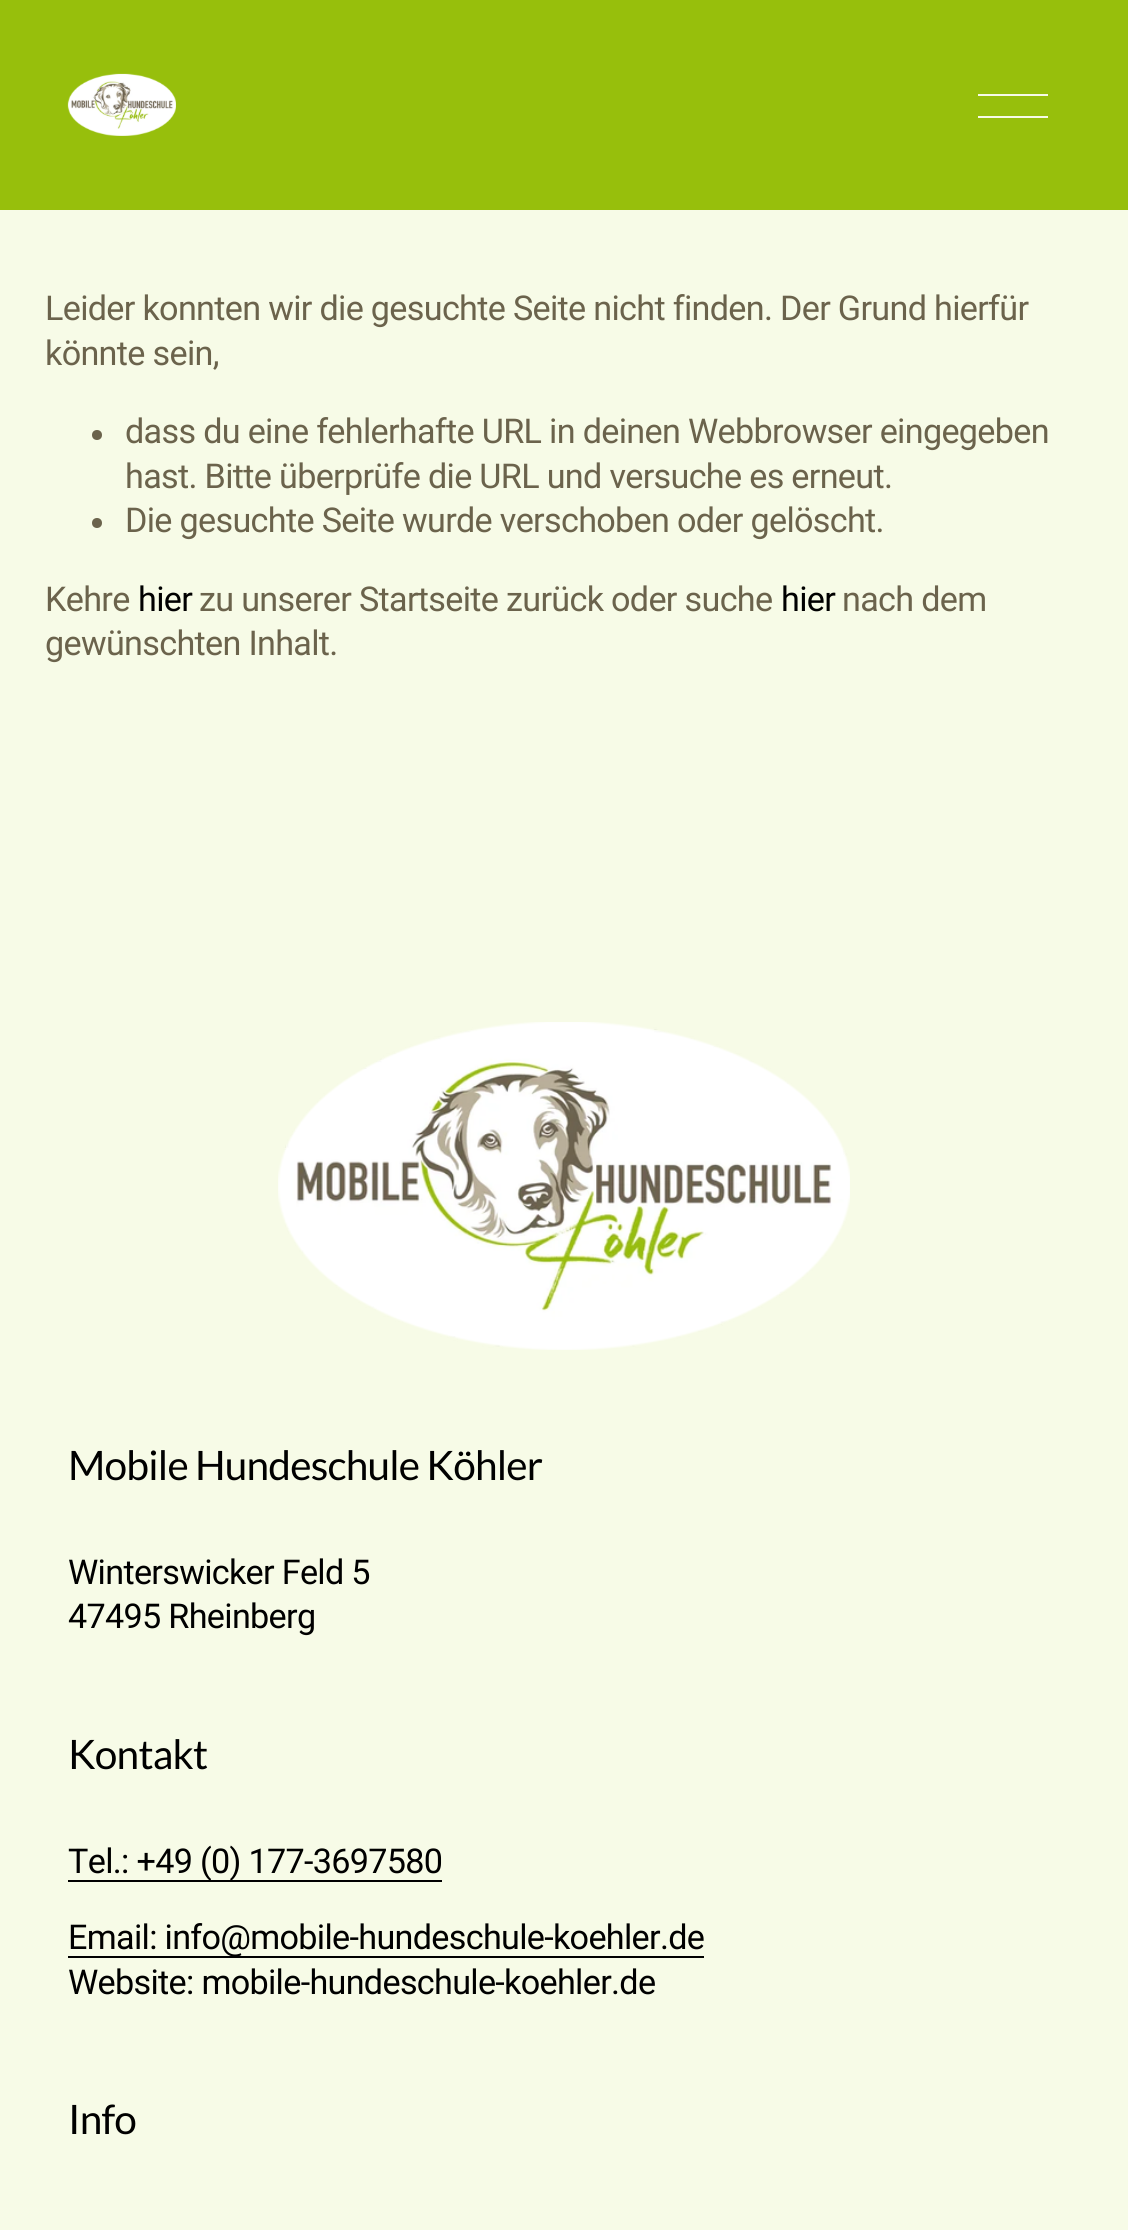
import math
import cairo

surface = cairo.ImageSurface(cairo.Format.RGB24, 1128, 2230)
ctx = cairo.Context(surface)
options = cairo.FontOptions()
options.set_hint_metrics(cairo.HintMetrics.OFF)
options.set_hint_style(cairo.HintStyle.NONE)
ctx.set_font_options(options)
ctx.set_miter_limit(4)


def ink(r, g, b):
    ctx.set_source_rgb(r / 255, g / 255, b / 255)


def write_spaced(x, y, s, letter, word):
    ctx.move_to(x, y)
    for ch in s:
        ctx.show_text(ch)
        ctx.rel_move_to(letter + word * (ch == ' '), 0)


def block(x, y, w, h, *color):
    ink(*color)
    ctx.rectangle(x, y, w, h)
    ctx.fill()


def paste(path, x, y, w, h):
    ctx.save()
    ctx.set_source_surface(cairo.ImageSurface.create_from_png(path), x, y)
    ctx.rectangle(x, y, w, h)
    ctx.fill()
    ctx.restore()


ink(247, 251, 231)
ctx.paint()
block(0, 0, 1128, 210, 151, 191, 12)
paste("pic1.png", 67, 73, 109, 63)
block(978, 94, 70, 2, 247, 251, 231)
block(978, 116, 70, 2, 247, 251, 231)
ctx.select_font_face("Roboto")
ctx.set_font_size(34.15)
ink(107, 99, 76)
write_spaced(45, 320, "Leider konnten wir die gesuchte Seite nicht finden. Der Grund hierfür", -0.68, 0)
write_spaced(45, 365, "könnte sein,", -0.68, 0)
ctx.new_path()
ctx.arc(97, 435, 5, 0, 2 * math.pi)
ctx.fill()
write_spaced(125, 443, "dass du eine fehlerhafte URL in deinen Webbrowser eingegeben", -0.68, 0)
write_spaced(125, 488, "hast. Bitte überprüfe die URL und versuche es erneut.", -0.68, 0)
ctx.new_path()
ctx.arc(97, 523, 5, 0, 2 * math.pi)
ctx.fill()
write_spaced(125, 532, "Die gesuchte Seite wurde verschoben oder gelöscht.", -0.68, 0)
write_spaced(45, 611, "Kehre", -0.68, 0)
ink(0, 0, 0)
write_spaced(138, 611, "hier", -0.68, 0)
ink(107, 99, 76)
write_spaced(199, 611, "zu unserer Startseite zurück oder suche", -0.68, 0)
ink(0, 0, 0)
write_spaced(781, 611, "hier", -0.68, 0)
ink(107, 99, 76)
write_spaced(842, 611, "nach dem", -0.68, 0)
write_spaced(45, 655, "gewünschten Inhalt.", -0.68, 0)
paste("pic2.png", 278, 1022, 572, 328)
ctx.select_font_face("Lato")
ctx.set_font_size(40.6)
ink(0, 0, 0)
write_spaced(68, 1480, "Mobile Hundeschule Köhler", -0.8, 0)
ctx.select_font_face("Roboto")
ctx.set_font_size(34.15)
write_spaced(68, 1584, "Winterswicker Feld 5", -0.68, 0)
write_spaced(68, 1628, "47495 Rheinberg", -0.68, 0)
ctx.select_font_face("Lato")
ctx.set_font_size(40.6)
write_spaced(68, 1769, "Kontakt", -0.8, 0)
block(68, 1880, 374, 2, 0, 0, 0)
ctx.select_font_face("Roboto")
ctx.set_font_size(34.15)
write_spaced(68, 1873, "Tel.: +49 (0) 177-3697580", -0.68, 0)
block(68, 1956, 636, 2, 0, 0, 0)
write_spaced(68, 1949, "Email: info@mobile-hundeschule-koehler.de", -0.68, 0)
write_spaced(68, 1994, "Website: mobile-hundeschule-koehler.de", -0.68, 0)
ctx.select_font_face("Lato")
ctx.set_font_size(40.6)
write_spaced(68, 2134, "Info", -0.8, 0)
surface.write_to_png("screenshot.png")
